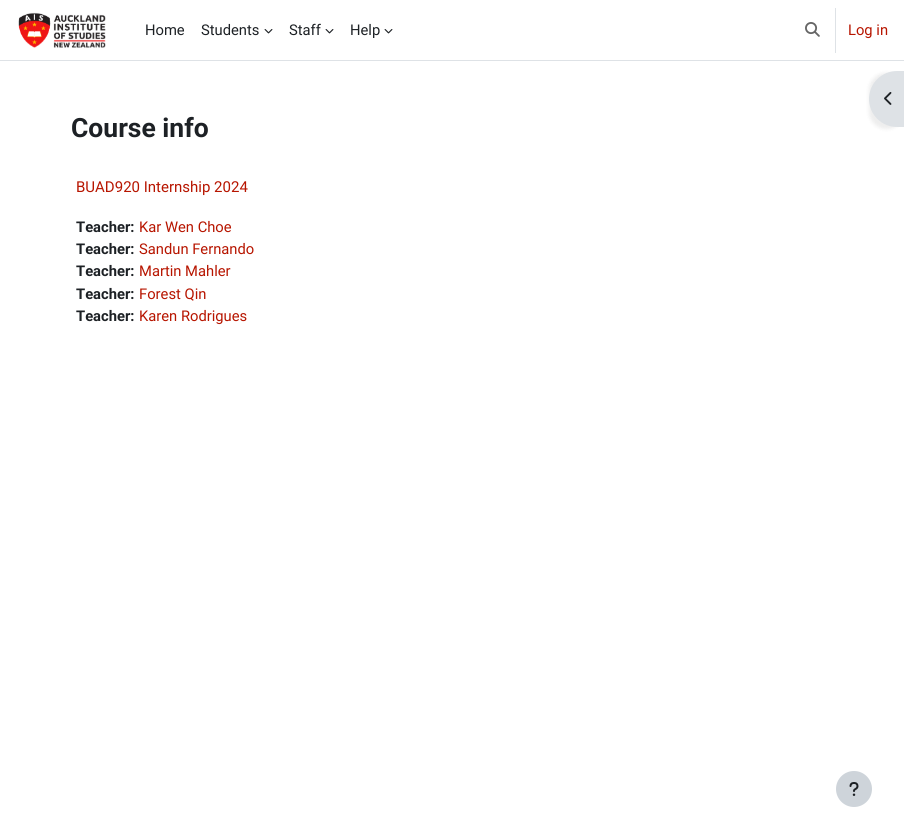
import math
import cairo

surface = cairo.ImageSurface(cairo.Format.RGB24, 904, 839)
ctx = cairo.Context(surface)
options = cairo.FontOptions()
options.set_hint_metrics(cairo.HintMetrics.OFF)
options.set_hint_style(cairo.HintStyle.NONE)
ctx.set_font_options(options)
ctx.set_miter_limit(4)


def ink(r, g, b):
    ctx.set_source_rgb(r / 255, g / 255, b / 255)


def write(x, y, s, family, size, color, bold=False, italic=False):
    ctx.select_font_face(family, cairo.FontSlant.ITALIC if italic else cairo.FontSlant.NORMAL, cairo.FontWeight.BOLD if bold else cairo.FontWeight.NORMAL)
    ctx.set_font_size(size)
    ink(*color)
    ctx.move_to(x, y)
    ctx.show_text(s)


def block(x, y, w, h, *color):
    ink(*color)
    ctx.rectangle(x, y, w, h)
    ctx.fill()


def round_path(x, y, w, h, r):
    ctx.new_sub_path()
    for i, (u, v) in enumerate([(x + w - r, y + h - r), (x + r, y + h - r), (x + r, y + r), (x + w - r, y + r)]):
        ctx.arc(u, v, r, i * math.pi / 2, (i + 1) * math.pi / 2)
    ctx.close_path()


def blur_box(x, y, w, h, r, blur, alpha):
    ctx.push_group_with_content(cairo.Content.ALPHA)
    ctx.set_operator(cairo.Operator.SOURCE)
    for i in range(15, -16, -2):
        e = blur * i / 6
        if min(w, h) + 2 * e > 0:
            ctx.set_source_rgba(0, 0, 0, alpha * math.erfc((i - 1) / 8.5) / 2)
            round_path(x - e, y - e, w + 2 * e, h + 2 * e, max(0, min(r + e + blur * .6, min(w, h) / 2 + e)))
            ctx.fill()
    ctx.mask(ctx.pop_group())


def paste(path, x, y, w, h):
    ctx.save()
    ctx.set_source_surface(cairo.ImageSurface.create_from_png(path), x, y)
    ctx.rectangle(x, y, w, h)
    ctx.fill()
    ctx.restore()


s1 = dict(family="Roboto", size=14.75, color=(29, 33, 37))
s2 = dict(family="Roboto", size=14.75, color=(183, 21, 0))
s3 = dict(family="Roboto", size=26.5, color=(29, 33, 37), bold=True)
s4 = dict(family="Roboto", size=15, color=(183, 21, 0))
s5 = dict(family="Roboto", size=14.75, color=(29, 33, 37), bold=True)

ink(255, 255, 255)
ctx.paint()
block(0, 60, 904, 1, 222, 226, 230)
paste("pic1.png", 18, 12, 88, 36)
write(145, 35, "Home", **s1)
write(201, 35, "Students", **s1)
paste("pic2.png", 264, 29, 9, 5)
write(289, 35, "Staff", **s1)
paste("pic2.png", 325, 29, 9, 5)
write(350, 35, "Help", **s1)
paste("pic2.png", 384, 29, 9, 5)
paste("pic3.png", 805, 22, 15, 15)
block(835, 8, 1, 45, 222, 226, 230)
write(848, 35, "Log in", **s2)
write(71, 137, "Course info", **s3)
ink(0, 0, 0)
blur_box(869, 73, 35, 56, 28, 2, 0.07)
ink(222, 226, 230)
ctx.new_path()
ctx.move_to(897, 71)
ctx.line_to(904, 71)
ctx.line_to(904, 127)
ctx.line_to(897, 127)
ctx.curve_to(881.5, 127, 869, 114.5, 869, 99)
ctx.curve_to(869, 83.5, 881.5, 71, 897, 71)
ctx.close_path()
ctx.fill()
paste("pic4.png", 884, 92, 8, 13)
write(76, 192, "BUAD920 Internship 2024", **s4)
write(76, 232, "Teacher:", **s5)
write(139, 232, "Kar Wen Choe", **s2)
write(76, 254, "Teacher:", **s5)
write(139, 254, "Sandun Fernando", **s2)
write(76, 276, "Teacher:", **s5)
write(139, 276, "Martin Mahler", **s2)
write(76, 299, "Teacher:", **s5)
write(139, 299, "Forest Qin", **s2)
write(76, 321, "Teacher:", **s5)
write(139, 321, "Karen Rodrigues", **s2)
ink(206, 212, 218)
ctx.new_path()
ctx.arc(854, 789, 18, 0, 2 * math.pi)
ctx.fill()
paste("pic5.png", 849, 782, 10, 14)
surface.write_to_png("screenshot.png")
